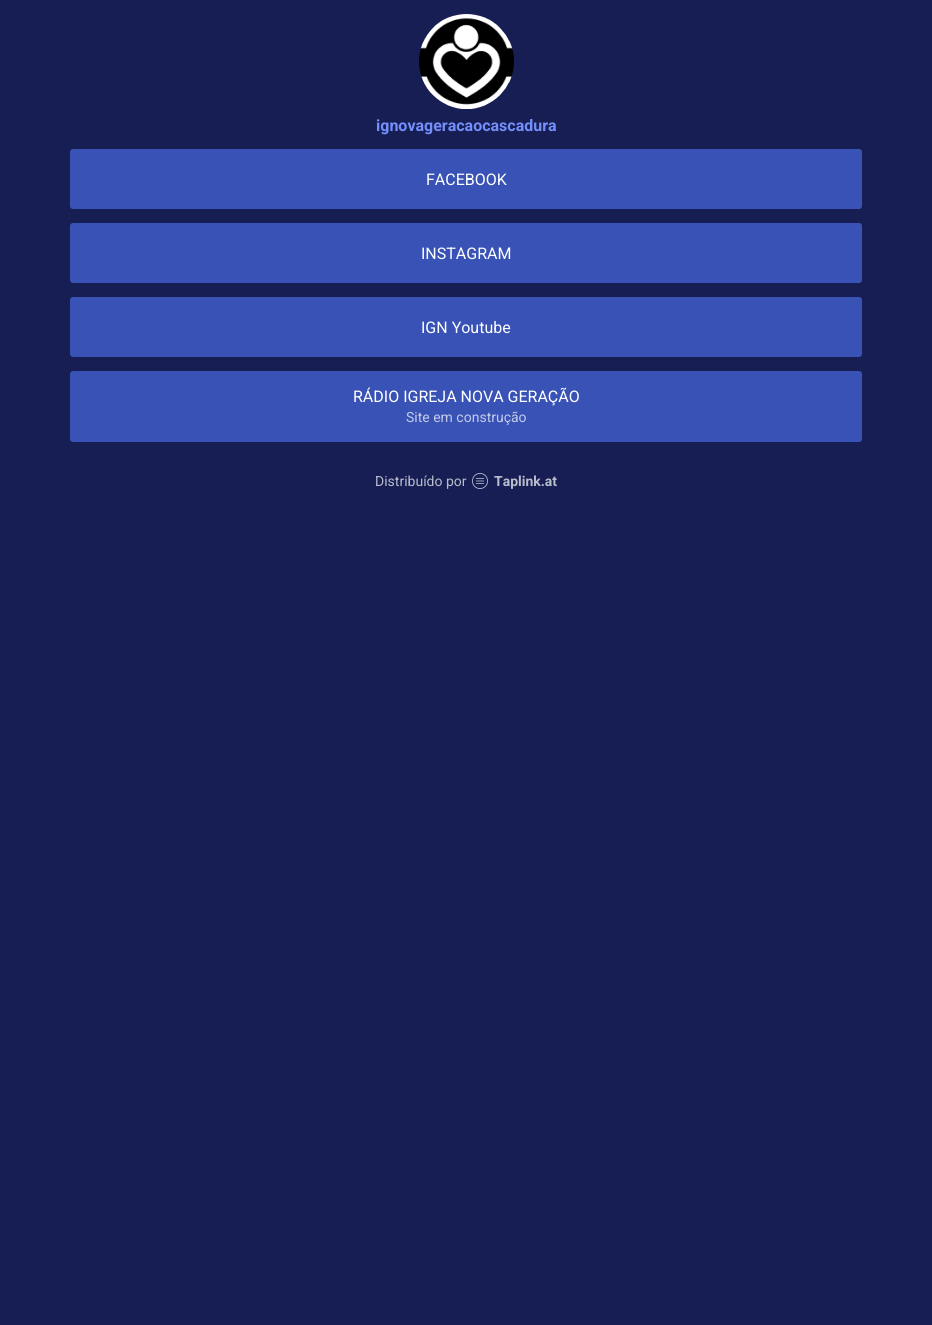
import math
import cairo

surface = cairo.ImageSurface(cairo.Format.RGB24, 932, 1325)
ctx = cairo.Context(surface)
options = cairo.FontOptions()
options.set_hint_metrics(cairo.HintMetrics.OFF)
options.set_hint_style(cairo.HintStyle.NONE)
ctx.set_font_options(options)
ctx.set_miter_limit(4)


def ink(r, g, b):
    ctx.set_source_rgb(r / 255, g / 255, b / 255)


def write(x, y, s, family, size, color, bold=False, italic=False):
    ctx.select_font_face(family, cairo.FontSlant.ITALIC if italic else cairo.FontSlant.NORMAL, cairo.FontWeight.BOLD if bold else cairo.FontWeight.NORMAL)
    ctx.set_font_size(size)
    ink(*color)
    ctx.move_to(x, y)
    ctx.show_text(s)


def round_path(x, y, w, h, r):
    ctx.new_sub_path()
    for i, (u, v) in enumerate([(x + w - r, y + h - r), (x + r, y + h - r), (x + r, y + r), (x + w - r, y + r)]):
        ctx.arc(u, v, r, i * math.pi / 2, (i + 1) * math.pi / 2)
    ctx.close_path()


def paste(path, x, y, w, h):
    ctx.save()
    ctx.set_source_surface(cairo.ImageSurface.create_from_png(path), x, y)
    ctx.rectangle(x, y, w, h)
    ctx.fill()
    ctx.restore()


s1 = dict(family="Roboto", size=16, color=(116, 143, 252), bold=True)
s2 = dict(family="Roboto", size=16, color=(255, 255, 255))
s3 = dict(family="Roboto", size=14, color=(196, 203, 233))
s4 = dict(family="Roboto", size=14, color=(185, 188, 203))
s5 = dict(family="Roboto", size=14, color=(185, 188, 203), bold=True)

ink(23, 30, 83)
ctx.paint()
paste("pic1.png", 419, 14, 95, 95)
write(376, 131, "ignovageracaocascadura", **s1)
ink(57, 82, 181)
round_path(71, 150, 790, 58, 2)
ctx.fill_preserve()
ctx.stroke()
write(426, 185, "FACEBOOK", **s2)
ink(57, 82, 181)
round_path(71, 224, 790, 58, 2)
ctx.fill_preserve()
ctx.stroke()
write(421, 259, "INSTAGRAM", **s2)
ink(57, 82, 181)
round_path(71, 298, 790, 58, 2)
ctx.fill_preserve()
ctx.stroke()
write(421, 333, "IGN Youtube", **s2)
ink(57, 82, 181)
round_path(71, 372, 790, 69, 2)
ctx.fill_preserve()
ctx.stroke()
write(353, 402, "RÁDIO IGREJA NOVA GERAÇÃO", **s2)
write(406, 422, "Site em construção", **s3)
write(375, 486, "Distribuído por", **s4)
paste("pic2.png", 472, 473, 16, 16)
write(494, 486, "Taplink.at", **s5)
surface.write_to_png("screenshot.png")
